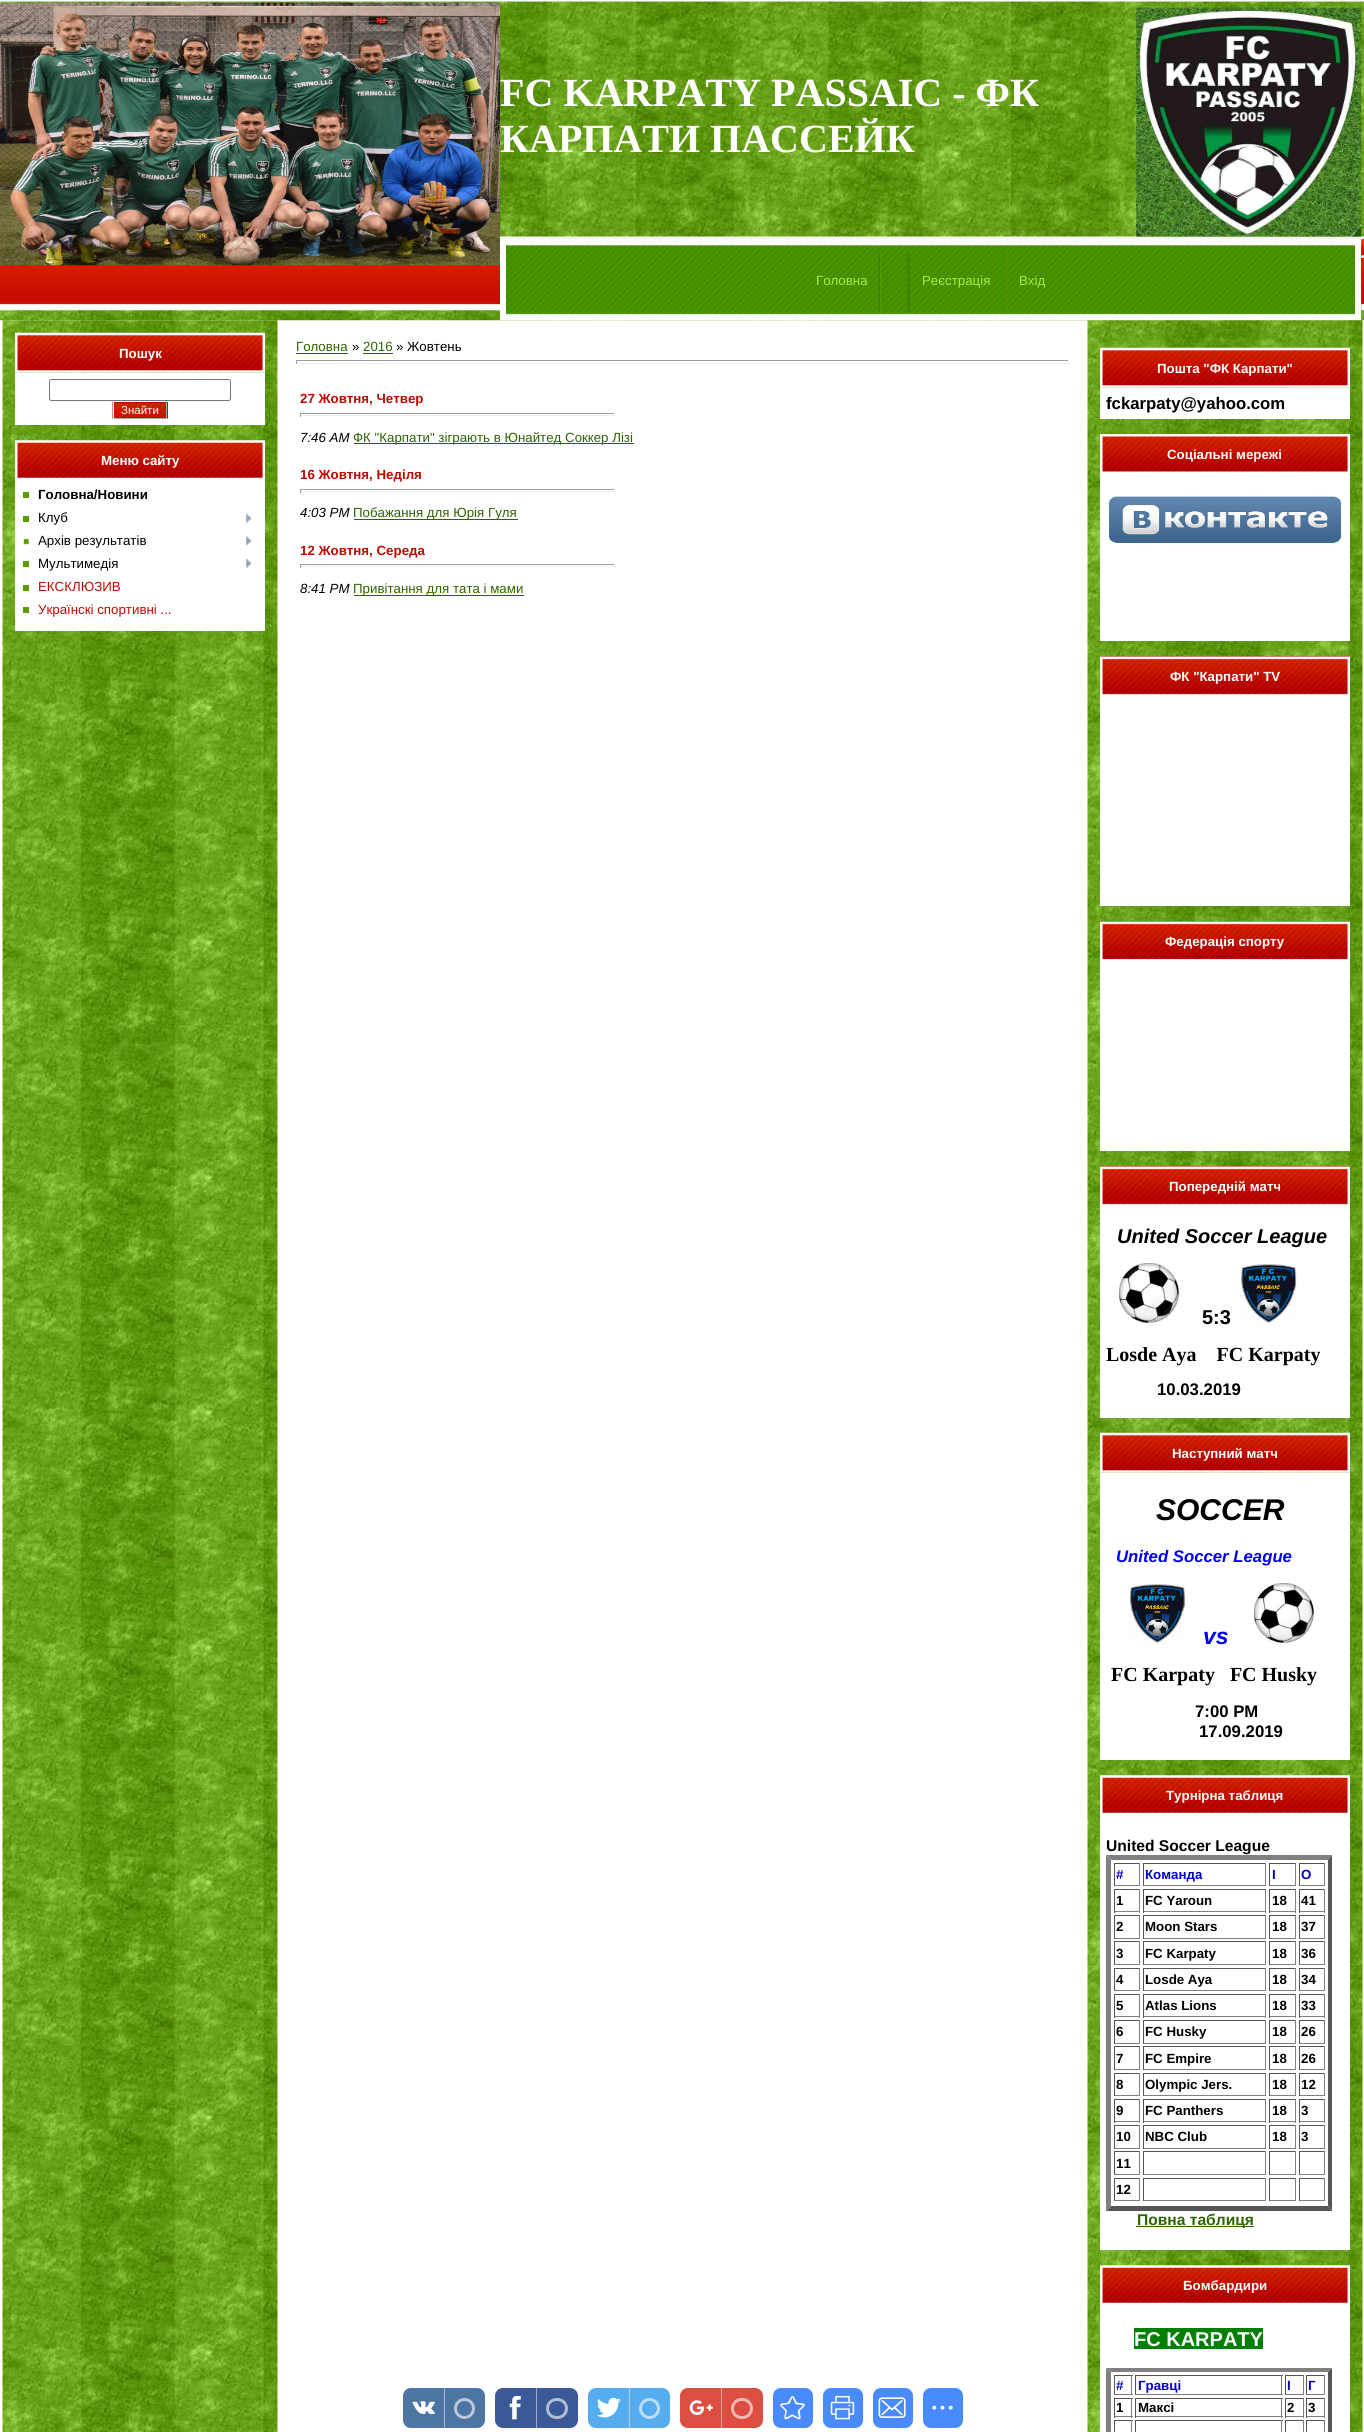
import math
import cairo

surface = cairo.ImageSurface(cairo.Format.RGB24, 1364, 2432)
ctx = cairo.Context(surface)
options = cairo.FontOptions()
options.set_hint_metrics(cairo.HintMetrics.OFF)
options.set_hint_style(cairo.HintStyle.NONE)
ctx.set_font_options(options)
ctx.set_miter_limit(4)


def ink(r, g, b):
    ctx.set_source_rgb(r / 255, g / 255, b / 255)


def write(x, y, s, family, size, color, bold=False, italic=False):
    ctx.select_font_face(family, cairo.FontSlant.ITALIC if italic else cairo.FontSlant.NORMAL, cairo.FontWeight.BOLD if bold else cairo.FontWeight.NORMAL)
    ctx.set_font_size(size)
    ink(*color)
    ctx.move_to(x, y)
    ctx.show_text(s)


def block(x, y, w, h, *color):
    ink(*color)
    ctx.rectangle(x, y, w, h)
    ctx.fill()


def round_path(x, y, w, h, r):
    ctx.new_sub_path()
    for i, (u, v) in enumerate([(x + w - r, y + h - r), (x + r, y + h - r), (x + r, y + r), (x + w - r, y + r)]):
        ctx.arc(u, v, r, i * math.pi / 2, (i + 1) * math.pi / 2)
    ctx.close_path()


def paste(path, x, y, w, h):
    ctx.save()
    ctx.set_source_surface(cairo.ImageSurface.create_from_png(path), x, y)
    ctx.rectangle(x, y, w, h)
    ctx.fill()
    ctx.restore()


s1 = dict(family="Liberation Serif", size=40, color=(255, 255, 255), bold=True)
s2 = dict(family="Liberation Sans", size=13.3, color=(166, 235, 71))
s3 = dict(family="Liberation Sans", size=13.3, color=(255, 255, 255), bold=True)
s4 = dict(family="Liberation Sans", size=11.5, color=(255, 255, 255))
s5 = dict(family="Liberation Sans", size=13.3, color=(0, 0, 0), bold=True)
s6 = dict(family="Liberation Sans", size=13.3, color=(0, 0, 0))
s7 = dict(family="Liberation Sans", size=13.3, color=(189, 10, 0))
s8 = dict(family="Liberation Sans", size=13.3, color=(46, 100, 0))
s9 = dict(family="Liberation Sans", size=13.3, color=(189, 10, 0), bold=True)
s10 = dict(family="Liberation Sans", size=13.3, color=(0, 0, 0), italic=True)
s11 = dict(family="Liberation Sans", size=16.75, color=(0, 0, 0), bold=True)
s12 = dict(family="Liberation Sans", size=20, color=(0, 0, 0), bold=True, italic=True)
s13 = dict(family="Liberation Sans", size=20, color=(0, 0, 0), bold=True)
s14 = dict(family="Liberation Serif", size=20, color=(0, 0, 0), bold=True)
s15 = dict(family="Liberation Sans", size=30, color=(0, 0, 0), bold=True, italic=True)
s16 = dict(family="Liberation Sans", size=16.75, color=(0, 0, 255), bold=True, italic=True)
s17 = dict(family="Liberation Sans", size=23, color=(0, 0, 255), bold=True, italic=True)
s18 = dict(family="Liberation Sans", size=15.6, color=(0, 0, 0), bold=True)
s19 = dict(family="Liberation Sans", size=13.3, color=(0, 0, 205), bold=True)
s20 = dict(family="Liberation Sans", size=15.6, color=(46, 100, 0), bold=True)
s21 = dict(family="Liberation Sans", size=20, color=(255, 255, 255), bold=True)

ink(255, 255, 255)
ctx.paint()
paste("pic1.png", 0, 0, 1364, 321)
paste("pic2.png", 0, 2, 500, 264)
write(500, 106, "FC KARPATY PASSAIC - ФК", **s1)
write(500, 152, "КАРПАТИ ПАССЕЙК", **s1)
paste("pic3.png", 1136, 7, 226, 230)
paste("pic4.png", 500, 239, 862, 82)
block(1355, 239, 6, 81, 255, 255, 255)
block(500, 239, 6, 81, 255, 255, 255)
write(816, 285, "Головна", **s2)
paste("pic5.png", 878, 252, 4, 60)
block(907, 253, 3, 59, 65, 132, 0)
write(922, 285, "Реєстрація", **s2)
block(1005, 252, 3, 60, 80, 146, 0)
write(1019, 285, "Вхід", **s2)
paste("pic6.png", 2, 320, 276, 2112)
paste("pic7.png", 15, 332, 250, 41)
write(119, 358, "Пошук", **s3)
block(15, 373, 250, 52, 255, 255, 255)
round_path(49.5, 379.5, 181, 21, 2)
ink(118, 118, 118)
ctx.set_line_width(1)
ctx.stroke()
block(167, 402, 1, 16, 182, 6, 0)
paste("pic8.png", 112, 401, 56, 18)
block(113, 401, 55, 1, 255, 255, 255)
block(166, 401, 1, 18, 170, 170, 170)
block(113, 418, 55, 1, 170, 170, 170)
block(113, 401, 1, 18, 255, 255, 255)
write(121, 414, "Знайти", **s4)
paste("pic9.png", 15, 440, 250, 40)
write(101, 465, "Меню сайту", **s3)
block(15, 480, 250, 151, 255, 255, 255)
block(23, 492, 6, 6, 91, 157, 0)
write(38, 499, "Головна/Новини", **s5)
block(23, 516, 6, 6, 91, 157, 0)
write(38, 522, "Клуб", **s6)
paste("pic10.png", 246, 514, 6, 9)
paste("pic11.png", 23, 538, 6, 7)
write(38, 545, "Архів результатів", **s6)
paste("pic12.png", 246, 536, 6, 10)
block(23, 561, 6, 6, 91, 157, 0)
write(38, 568, "Мультимедія", **s6)
paste("pic10.png", 246, 559, 6, 9)
block(23, 585, 6, 6, 91, 157, 0)
write(38, 591, "ЕКСКЛЮЗИВ", **s7)
block(23, 607, 6, 6, 91, 157, 0)
write(38, 614, "Українскі спортивні ...", **s7)
write(296, 351, "Головна", **s8)
block(296, 353, 52, 1, 46, 100, 0)
write(352, 351, "»", **s6)
write(363, 351, "2016", **s8)
block(363, 353, 30, 1, 46, 100, 0)
write(396, 351, "» Жовтень", **s6)
block(296, 360, 773, 1, 159, 159, 159)
block(1068, 360, 1, 4, 238, 238, 238)
block(296, 363, 773, 1, 238, 238, 238)
block(296, 360, 1, 4, 159, 159, 159)
write(300, 403, "27 Жовтня, Четвер", **s9)
block(300, 413, 315, 1, 159, 159, 159)
block(614, 413, 1, 4, 238, 238, 238)
block(300, 415, 315, 1, 238, 238, 238)
block(300, 413, 1, 4, 159, 159, 159)
write(300, 442, "7:46 AM", **s10)
block(354, 443, 280, 1, 46, 100, 0)
write(353, 442, "ФК \"Карпати\" зіграють в Юнайтед Соккер Лізі", **s8)
write(300, 479, "16 Жовтня, Неділя", **s9)
block(300, 489, 315, 1, 159, 159, 159)
block(614, 489, 1, 4, 238, 238, 238)
block(300, 491, 315, 1, 238, 238, 238)
block(300, 489, 1, 4, 159, 159, 159)
write(300, 517, "4:03 PM", **s10)
block(354, 519, 164, 1, 46, 100, 0)
write(353, 517, "Побажання для Юрія Гуля", **s8)
write(300, 555, "12 Жовтня, Середа", **s9)
block(300, 564, 315, 1, 159, 159, 159)
block(614, 564, 1, 4, 238, 238, 238)
block(300, 566, 315, 1, 238, 238, 238)
block(300, 564, 1, 4, 159, 159, 159)
write(300, 593, "8:41 PM", **s10)
block(354, 595, 170, 1, 46, 100, 0)
write(353, 593, "Привітання для тата і мами", **s8)
paste("pic13.png", 1087, 320, 276, 2112)
paste("pic14.png", 1100, 347, 250, 41)
write(1157, 373, "Пошта \"ФК Карпати\"", **s3)
block(1100, 388, 250, 31, 255, 255, 255)
write(1106, 409, "fckarpaty@yahoo.com", **s11)
paste("pic15.png", 1100, 434, 250, 40)
write(1167, 459, "Соціальні мережі", **s3)
block(1100, 474, 250, 167, 255, 255, 255)
paste("pic16.png", 1109, 496, 233, 47)
block(1100, 656, 250, 1, 174, 0, 0)
paste("pic17.png", 1100, 656, 250, 40)
write(1170, 681, "ФК \"Карпати\" TV", **s3)
block(1100, 696, 250, 210, 255, 255, 255)
block(1100, 921, 250, 1, 174, 0, 0)
paste("pic17.png", 1100, 921, 250, 40)
write(1165, 946, "Федерація спорту", **s3)
block(1100, 961, 250, 190, 255, 255, 255)
block(1100, 1166, 250, 1, 174, 0, 0)
paste("pic17.png", 1100, 1166, 250, 40)
write(1169, 1191, "Попередній матч", **s3)
block(1100, 1206, 250, 212, 255, 255, 255)
write(1117, 1243, "United Soccer League", **s12)
paste("pic18.png", 1119, 1263, 60, 60)
write(1202, 1324, "5:3", **s13)
paste("pic19.png", 1241, 1264, 56, 59)
write(1106, 1361, "Losde Aya    FC Karpaty", **s14)
write(1157, 1395, "10.03.2019", **s11)
paste("pic20.png", 1100, 1432, 250, 41)
write(1172, 1458, "Наступний матч", **s3)
block(1100, 1473, 250, 287, 255, 255, 255)
write(1156, 1520, "SOCCER", **s15)
write(1116, 1562, "United Soccer League", **s16)
paste("pic21.png", 1129, 1584, 57, 59)
write(1203, 1644, "vs", **s17)
paste("pic18.png", 1254, 1583, 60, 60)
write(1111, 1681, "FC Karpaty   FC Husky", **s14)
write(1195, 1717, "7:00 PM", **s11)
write(1199, 1737, "17.09.2019", **s11)
paste("pic22.png", 1100, 1775, 250, 40)
write(1166, 1800, "Турнірна таблиця", **s3)
block(1100, 1815, 250, 435, 255, 255, 255)
write(1106, 1851, "United Soccer League", **s18)
ink(128, 128, 128)
ctx.new_path()
ctx.move_to(1106, 1855)
ctx.line_to(1332, 1855)
ctx.line_to(1328, 1860)
ctx.line_to(1111, 1860)
ctx.close_path()
ctx.fill()
ink(85, 85, 85)
ctx.new_path()
ctx.move_to(1332, 1855)
ctx.line_to(1332, 2211)
ctx.line_to(1328, 2206)
ctx.line_to(1328, 1860)
ctx.close_path()
ctx.fill()
ctx.new_path()
ctx.move_to(1332, 2211)
ctx.line_to(1106, 2211)
ctx.line_to(1111, 2206)
ctx.line_to(1328, 2206)
ctx.close_path()
ctx.fill()
ink(128, 128, 128)
ctx.new_path()
ctx.move_to(1106, 2211)
ctx.line_to(1106, 1855)
ctx.line_to(1111, 1860)
ctx.line_to(1111, 2206)
ctx.close_path()
ctx.fill()
block(1114, 1863, 26, 1, 85, 85, 85)
block(1139, 1863, 1, 23, 128, 128, 128)
block(1114, 1885, 26, 1, 128, 128, 128)
block(1114, 1863, 1, 23, 85, 85, 85)
write(1116, 1879, "#", **s19)
block(1143, 1863, 123, 1, 85, 85, 85)
block(1265, 1863, 1, 23, 128, 128, 128)
block(1143, 1885, 123, 1, 128, 128, 128)
block(1143, 1863, 1, 23, 85, 85, 85)
write(1145, 1879, "Команда", **s19)
block(1269, 1863, 27, 1, 85, 85, 85)
block(1295, 1863, 1, 23, 128, 128, 128)
block(1269, 1885, 27, 1, 128, 128, 128)
block(1269, 1863, 1, 23, 85, 85, 85)
write(1272, 1879, "I", **s19)
block(1299, 1863, 26, 1, 85, 85, 85)
block(1324, 1863, 1, 23, 128, 128, 128)
block(1299, 1885, 26, 1, 128, 128, 128)
block(1299, 1863, 1, 23, 85, 85, 85)
write(1301, 1879, "O", **s19)
block(1114, 1889, 26, 1, 85, 85, 85)
block(1139, 1889, 1, 24, 128, 128, 128)
block(1114, 1911, 26, 1, 128, 128, 128)
block(1114, 1889, 1, 24, 85, 85, 85)
write(1116, 1905, "1", **s5)
block(1143, 1889, 123, 1, 85, 85, 85)
block(1265, 1889, 1, 24, 128, 128, 128)
block(1143, 1911, 123, 1, 128, 128, 128)
block(1143, 1889, 1, 24, 85, 85, 85)
write(1145, 1905, "FC Yaroun", **s5)
block(1269, 1889, 27, 1, 85, 85, 85)
block(1295, 1889, 1, 24, 128, 128, 128)
block(1269, 1911, 27, 1, 128, 128, 128)
block(1269, 1889, 1, 24, 85, 85, 85)
write(1272, 1905, "18", **s5)
block(1299, 1889, 26, 1, 85, 85, 85)
block(1324, 1889, 1, 24, 128, 128, 128)
block(1299, 1911, 26, 1, 128, 128, 128)
block(1299, 1889, 1, 24, 85, 85, 85)
write(1301, 1905, "41", **s5)
block(1114, 1915, 26, 1, 85, 85, 85)
block(1139, 1915, 1, 24, 128, 128, 128)
block(1114, 1938, 26, 1, 128, 128, 128)
block(1114, 1915, 1, 24, 85, 85, 85)
write(1116, 1931, "2", **s5)
block(1143, 1915, 123, 1, 85, 85, 85)
block(1265, 1915, 1, 24, 128, 128, 128)
block(1143, 1938, 123, 1, 128, 128, 128)
block(1143, 1915, 1, 24, 85, 85, 85)
write(1145, 1931, "Moon Stars", **s5)
block(1269, 1915, 27, 1, 85, 85, 85)
block(1295, 1915, 1, 24, 128, 128, 128)
block(1269, 1938, 27, 1, 128, 128, 128)
block(1269, 1915, 1, 24, 85, 85, 85)
write(1272, 1931, "18", **s5)
block(1299, 1915, 26, 1, 85, 85, 85)
block(1324, 1915, 1, 24, 128, 128, 128)
block(1299, 1938, 26, 1, 128, 128, 128)
block(1299, 1915, 1, 24, 85, 85, 85)
write(1301, 1931, "37", **s5)
block(1114, 1941, 26, 1, 85, 85, 85)
block(1139, 1941, 1, 24, 128, 128, 128)
block(1114, 1964, 26, 1, 128, 128, 128)
block(1114, 1941, 1, 24, 85, 85, 85)
write(1116, 1958, "3", **s5)
block(1143, 1941, 123, 1, 85, 85, 85)
block(1265, 1941, 1, 24, 128, 128, 128)
block(1143, 1964, 123, 1, 128, 128, 128)
block(1143, 1941, 1, 24, 85, 85, 85)
write(1145, 1958, "FC Karpaty", **s5)
block(1269, 1941, 27, 1, 85, 85, 85)
block(1295, 1941, 1, 24, 128, 128, 128)
block(1269, 1964, 27, 1, 128, 128, 128)
block(1269, 1941, 1, 24, 85, 85, 85)
write(1272, 1958, "18", **s5)
block(1299, 1941, 26, 1, 85, 85, 85)
block(1324, 1941, 1, 24, 128, 128, 128)
block(1299, 1964, 26, 1, 128, 128, 128)
block(1299, 1941, 1, 24, 85, 85, 85)
write(1301, 1958, "36", **s5)
block(1114, 1968, 26, 1, 85, 85, 85)
block(1139, 1968, 1, 23, 128, 128, 128)
block(1114, 1990, 26, 1, 128, 128, 128)
block(1114, 1968, 1, 23, 85, 85, 85)
write(1116, 1984, "4", **s5)
block(1143, 1968, 123, 1, 85, 85, 85)
block(1265, 1968, 1, 23, 128, 128, 128)
block(1143, 1990, 123, 1, 128, 128, 128)
block(1143, 1968, 1, 23, 85, 85, 85)
write(1145, 1984, "Losde Aya", **s5)
block(1269, 1968, 27, 1, 85, 85, 85)
block(1295, 1968, 1, 23, 128, 128, 128)
block(1269, 1990, 27, 1, 128, 128, 128)
block(1269, 1968, 1, 23, 85, 85, 85)
write(1272, 1984, "18", **s5)
block(1299, 1968, 26, 1, 85, 85, 85)
block(1324, 1968, 1, 23, 128, 128, 128)
block(1299, 1990, 26, 1, 128, 128, 128)
block(1299, 1968, 1, 23, 85, 85, 85)
write(1301, 1984, "34", **s5)
block(1114, 1994, 26, 1, 85, 85, 85)
block(1139, 1994, 1, 24, 128, 128, 128)
block(1114, 2016, 26, 1, 128, 128, 128)
block(1114, 1994, 1, 24, 85, 85, 85)
write(1116, 2010, "5", **s5)
block(1143, 1994, 123, 1, 85, 85, 85)
block(1265, 1994, 1, 24, 128, 128, 128)
block(1143, 2016, 123, 1, 128, 128, 128)
block(1143, 1994, 1, 24, 85, 85, 85)
write(1145, 2010, "Atlas Lions", **s5)
block(1269, 1994, 27, 1, 85, 85, 85)
block(1295, 1994, 1, 24, 128, 128, 128)
block(1269, 2016, 27, 1, 128, 128, 128)
block(1269, 1994, 1, 24, 85, 85, 85)
write(1272, 2010, "18", **s5)
block(1299, 1994, 26, 1, 85, 85, 85)
block(1324, 1994, 1, 24, 128, 128, 128)
block(1299, 2016, 26, 1, 128, 128, 128)
block(1299, 1994, 1, 24, 85, 85, 85)
write(1301, 2010, "33", **s5)
block(1114, 2020, 26, 1, 85, 85, 85)
block(1139, 2020, 1, 24, 128, 128, 128)
block(1114, 2043, 26, 1, 128, 128, 128)
block(1114, 2020, 1, 24, 85, 85, 85)
write(1116, 2036, "6", **s5)
block(1143, 2020, 123, 1, 85, 85, 85)
block(1265, 2020, 1, 24, 128, 128, 128)
block(1143, 2043, 123, 1, 128, 128, 128)
block(1143, 2020, 1, 24, 85, 85, 85)
write(1145, 2036, "FC Husky", **s5)
block(1269, 2020, 27, 1, 85, 85, 85)
block(1295, 2020, 1, 24, 128, 128, 128)
block(1269, 2043, 27, 1, 128, 128, 128)
block(1269, 2020, 1, 24, 85, 85, 85)
write(1272, 2036, "18", **s5)
block(1299, 2020, 26, 1, 85, 85, 85)
block(1324, 2020, 1, 24, 128, 128, 128)
block(1299, 2043, 26, 1, 128, 128, 128)
block(1299, 2020, 1, 24, 85, 85, 85)
write(1301, 2036, "26", **s5)
block(1114, 2046, 26, 1, 85, 85, 85)
block(1139, 2046, 1, 24, 128, 128, 128)
block(1114, 2069, 26, 1, 128, 128, 128)
block(1114, 2046, 1, 24, 85, 85, 85)
write(1116, 2063, "7", **s5)
block(1143, 2046, 123, 1, 85, 85, 85)
block(1265, 2046, 1, 24, 128, 128, 128)
block(1143, 2069, 123, 1, 128, 128, 128)
block(1143, 2046, 1, 24, 85, 85, 85)
write(1145, 2063, "FC Empire", **s5)
block(1269, 2046, 27, 1, 85, 85, 85)
block(1295, 2046, 1, 24, 128, 128, 128)
block(1269, 2069, 27, 1, 128, 128, 128)
block(1269, 2046, 1, 24, 85, 85, 85)
write(1272, 2063, "18", **s5)
block(1299, 2046, 26, 1, 85, 85, 85)
block(1324, 2046, 1, 24, 128, 128, 128)
block(1299, 2069, 26, 1, 128, 128, 128)
block(1299, 2046, 1, 24, 85, 85, 85)
write(1301, 2063, "26", **s5)
block(1114, 2073, 26, 1, 85, 85, 85)
block(1139, 2073, 1, 23, 128, 128, 128)
block(1114, 2095, 26, 1, 128, 128, 128)
block(1114, 2073, 1, 23, 85, 85, 85)
write(1116, 2089, "8", **s5)
block(1143, 2073, 123, 1, 85, 85, 85)
block(1265, 2073, 1, 23, 128, 128, 128)
block(1143, 2095, 123, 1, 128, 128, 128)
block(1143, 2073, 1, 23, 85, 85, 85)
write(1145, 2089, "Olympic Jers.", **s5)
block(1269, 2073, 27, 1, 85, 85, 85)
block(1295, 2073, 1, 23, 128, 128, 128)
block(1269, 2095, 27, 1, 128, 128, 128)
block(1269, 2073, 1, 23, 85, 85, 85)
write(1272, 2089, "18", **s5)
block(1299, 2073, 26, 1, 85, 85, 85)
block(1324, 2073, 1, 23, 128, 128, 128)
block(1299, 2095, 26, 1, 128, 128, 128)
block(1299, 2073, 1, 23, 85, 85, 85)
write(1301, 2089, "12", **s5)
block(1114, 2099, 26, 1, 85, 85, 85)
block(1139, 2099, 1, 24, 128, 128, 128)
block(1114, 2121, 26, 1, 128, 128, 128)
block(1114, 2099, 1, 24, 85, 85, 85)
write(1116, 2115, "9", **s5)
block(1143, 2099, 123, 1, 85, 85, 85)
block(1265, 2099, 1, 24, 128, 128, 128)
block(1143, 2121, 123, 1, 128, 128, 128)
block(1143, 2099, 1, 24, 85, 85, 85)
write(1145, 2115, "FC Panthers", **s5)
block(1269, 2099, 27, 1, 85, 85, 85)
block(1295, 2099, 1, 24, 128, 128, 128)
block(1269, 2121, 27, 1, 128, 128, 128)
block(1269, 2099, 1, 24, 85, 85, 85)
write(1272, 2115, "18", **s5)
block(1299, 2099, 26, 1, 85, 85, 85)
block(1324, 2099, 1, 24, 128, 128, 128)
block(1299, 2121, 26, 1, 128, 128, 128)
block(1299, 2099, 1, 24, 85, 85, 85)
write(1301, 2115, "3", **s5)
block(1114, 2125, 26, 1, 85, 85, 85)
block(1139, 2125, 1, 24, 128, 128, 128)
block(1114, 2148, 26, 1, 128, 128, 128)
block(1114, 2125, 1, 24, 85, 85, 85)
write(1116, 2141, "10", **s5)
block(1143, 2125, 123, 1, 85, 85, 85)
block(1265, 2125, 1, 24, 128, 128, 128)
block(1143, 2148, 123, 1, 128, 128, 128)
block(1143, 2125, 1, 24, 85, 85, 85)
write(1145, 2141, "NBC Club", **s5)
block(1269, 2125, 27, 1, 85, 85, 85)
block(1295, 2125, 1, 24, 128, 128, 128)
block(1269, 2148, 27, 1, 128, 128, 128)
block(1269, 2125, 1, 24, 85, 85, 85)
write(1272, 2141, "18", **s5)
block(1299, 2125, 26, 1, 85, 85, 85)
block(1324, 2125, 1, 24, 128, 128, 128)
block(1299, 2148, 26, 1, 128, 128, 128)
block(1299, 2125, 1, 24, 85, 85, 85)
write(1301, 2141, "3", **s5)
block(1114, 2151, 26, 1, 85, 85, 85)
block(1139, 2151, 1, 24, 128, 128, 128)
block(1114, 2174, 26, 1, 128, 128, 128)
block(1114, 2151, 1, 24, 85, 85, 85)
write(1116, 2168, "11", **s5)
block(1143, 2151, 123, 1, 85, 85, 85)
block(1265, 2151, 1, 24, 128, 128, 128)
block(1143, 2174, 123, 1, 128, 128, 128)
block(1143, 2151, 1, 24, 85, 85, 85)
block(1269, 2151, 27, 1, 85, 85, 85)
block(1295, 2151, 1, 24, 128, 128, 128)
block(1269, 2174, 27, 1, 128, 128, 128)
block(1269, 2151, 1, 24, 85, 85, 85)
block(1299, 2151, 26, 1, 85, 85, 85)
block(1324, 2151, 1, 24, 128, 128, 128)
block(1299, 2174, 26, 1, 128, 128, 128)
block(1299, 2151, 1, 24, 85, 85, 85)
block(1114, 2178, 26, 1, 85, 85, 85)
block(1139, 2178, 1, 23, 128, 128, 128)
block(1114, 2200, 26, 1, 128, 128, 128)
block(1114, 2178, 1, 23, 85, 85, 85)
write(1116, 2194, "12", **s5)
block(1143, 2178, 123, 1, 85, 85, 85)
block(1265, 2178, 1, 23, 128, 128, 128)
block(1143, 2200, 123, 1, 128, 128, 128)
block(1143, 2178, 1, 23, 85, 85, 85)
block(1269, 2178, 27, 1, 85, 85, 85)
block(1295, 2178, 1, 23, 128, 128, 128)
block(1269, 2200, 27, 1, 128, 128, 128)
block(1269, 2178, 1, 23, 85, 85, 85)
block(1299, 2178, 26, 1, 85, 85, 85)
block(1324, 2178, 1, 23, 128, 128, 128)
block(1299, 2200, 26, 1, 128, 128, 128)
block(1299, 2178, 1, 23, 85, 85, 85)
block(1136, 2226, 118, 1, 46, 100, 0)
write(1137, 2225, "Повна таблиця", **s20)
paste("pic23.png", 1100, 2265, 250, 40)
write(1183, 2290, "Бомбардири", **s3)
block(1100, 2305, 250, 127, 255, 255, 255)
block(1134, 2328, 129, 21, 0, 128, 0)
write(1134, 2346, "FC KARPATY", **s21)
ink(128, 128, 128)
ctx.new_path()
ctx.move_to(1106, 2368)
ctx.line_to(1332, 2368)
ctx.line_to(1328, 2372)
ctx.line_to(1111, 2372)
ctx.close_path()
ctx.fill()
ink(85, 85, 85)
ctx.new_path()
ctx.move_to(1332, 2368)
ctx.line_to(1332, 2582)
ctx.line_to(1328, 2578)
ctx.line_to(1328, 2372)
ctx.close_path()
ctx.fill()
ink(128, 128, 128)
ctx.new_path()
ctx.move_to(1106, 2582)
ctx.line_to(1106, 2368)
ctx.line_to(1111, 2372)
ctx.line_to(1111, 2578)
ctx.close_path()
ctx.fill()
block(1114, 2375, 19, 1, 85, 85, 85)
block(1131, 2375, 1, 20, 128, 128, 128)
block(1114, 2394, 19, 1, 128, 128, 128)
block(1114, 2375, 1, 20, 85, 85, 85)
write(1116, 2390, "#", **s19)
block(1135, 2375, 148, 1, 85, 85, 85)
block(1281, 2375, 1, 20, 128, 128, 128)
block(1135, 2394, 148, 1, 128, 128, 128)
block(1135, 2375, 1, 20, 85, 85, 85)
write(1138, 2390, "Гравці", **s19)
block(1285, 2375, 19, 1, 85, 85, 85)
block(1303, 2375, 1, 20, 128, 128, 128)
block(1285, 2394, 19, 1, 128, 128, 128)
block(1285, 2375, 1, 20, 85, 85, 85)
write(1287, 2390, "I", **s19)
block(1306, 2375, 19, 1, 85, 85, 85)
block(1324, 2375, 1, 20, 128, 128, 128)
block(1306, 2394, 19, 1, 128, 128, 128)
block(1306, 2375, 1, 20, 85, 85, 85)
write(1308, 2390, "Г", **s19)
block(1114, 2398, 19, 1, 85, 85, 85)
block(1131, 2398, 1, 20, 128, 128, 128)
block(1114, 2416, 19, 1, 128, 128, 128)
block(1114, 2398, 1, 20, 85, 85, 85)
write(1116, 2412, "1", **s5)
block(1135, 2398, 148, 1, 85, 85, 85)
block(1281, 2398, 1, 20, 128, 128, 128)
block(1135, 2416, 148, 1, 128, 128, 128)
block(1135, 2398, 1, 20, 85, 85, 85)
write(1138, 2412, "Максі", **s5)
block(1285, 2398, 19, 1, 85, 85, 85)
block(1303, 2398, 1, 20, 128, 128, 128)
block(1285, 2416, 19, 1, 128, 128, 128)
block(1285, 2398, 1, 20, 85, 85, 85)
write(1287, 2412, "2", **s5)
block(1306, 2398, 19, 1, 85, 85, 85)
block(1324, 2398, 1, 20, 128, 128, 128)
block(1306, 2416, 19, 1, 128, 128, 128)
block(1306, 2398, 1, 20, 85, 85, 85)
write(1308, 2412, "3", **s5)
block(1114, 2420, 19, 1, 85, 85, 85)
block(1131, 2420, 1, 12, 128, 128, 128)
block(1114, 2420, 1, 12, 85, 85, 85)
block(1135, 2420, 148, 1, 85, 85, 85)
block(1281, 2420, 1, 12, 128, 128, 128)
block(1135, 2420, 1, 12, 85, 85, 85)
block(1285, 2420, 19, 1, 85, 85, 85)
block(1303, 2420, 1, 12, 128, 128, 128)
block(1285, 2420, 1, 12, 85, 85, 85)
block(1306, 2420, 19, 1, 85, 85, 85)
block(1324, 2420, 1, 12, 128, 128, 128)
block(1306, 2420, 1, 12, 85, 85, 85)
ink(77, 117, 163)
round_path(403, 2388, 82, 40, 8)
ctx.fill()
paste("pic24.png", 412, 2401, 23, 13)
block(444, 2388, 1, 40, 166, 186, 209)
ctx.arc(464.5, 2408.5, 9, 0, 2 * math.pi)
ink(184, 200, 218)
ctx.set_line_width(3)
ctx.stroke()
ink(59, 89, 152)
round_path(495, 2388, 83, 40, 8)
ctx.fill()
paste("pic25.png", 509, 2395, 12, 25)
block(536, 2388, 1, 40, 157, 172, 204)
round_path(547.5, 2399.5, 19, 18, 9)
ink(177, 189, 214)
ctx.stroke()
ink(85, 172, 238)
round_path(588, 2388, 82, 40, 8)
ctx.fill()
paste("pic26.png", 597, 2397, 24, 21)
block(629, 2388, 1, 40, 170, 214, 247)
ctx.arc(649.5, 2408.5, 9, 0, 2 * math.pi)
ink(187, 222, 248)
ctx.stroke()
ink(220, 78, 65)
round_path(680, 2388, 83, 40, 8)
ctx.fill()
paste("pic27.png", 689, 2400, 24, 15)
block(721, 2388, 1, 40, 238, 167, 160)
round_path(732.5, 2399.5, 19, 18, 9)
ink(241, 184, 179)
ctx.stroke()
ink(73, 139, 250)
round_path(773, 2388, 40, 40, 8)
ctx.fill()
paste("pic28.png", 780, 2396, 25, 24)
round_path(823, 2388, 40, 40, 8)
ctx.fill()
paste("pic29.png", 830, 2395, 25, 25)
round_path(873, 2388, 40, 40, 8)
ctx.fill()
paste("pic30.png", 878, 2397, 28, 21)
round_path(923, 2388, 40, 40, 8)
ctx.fill()
paste("pic31.png", 932, 2405, 21, 5)
surface.write_to_png("screenshot.png")
